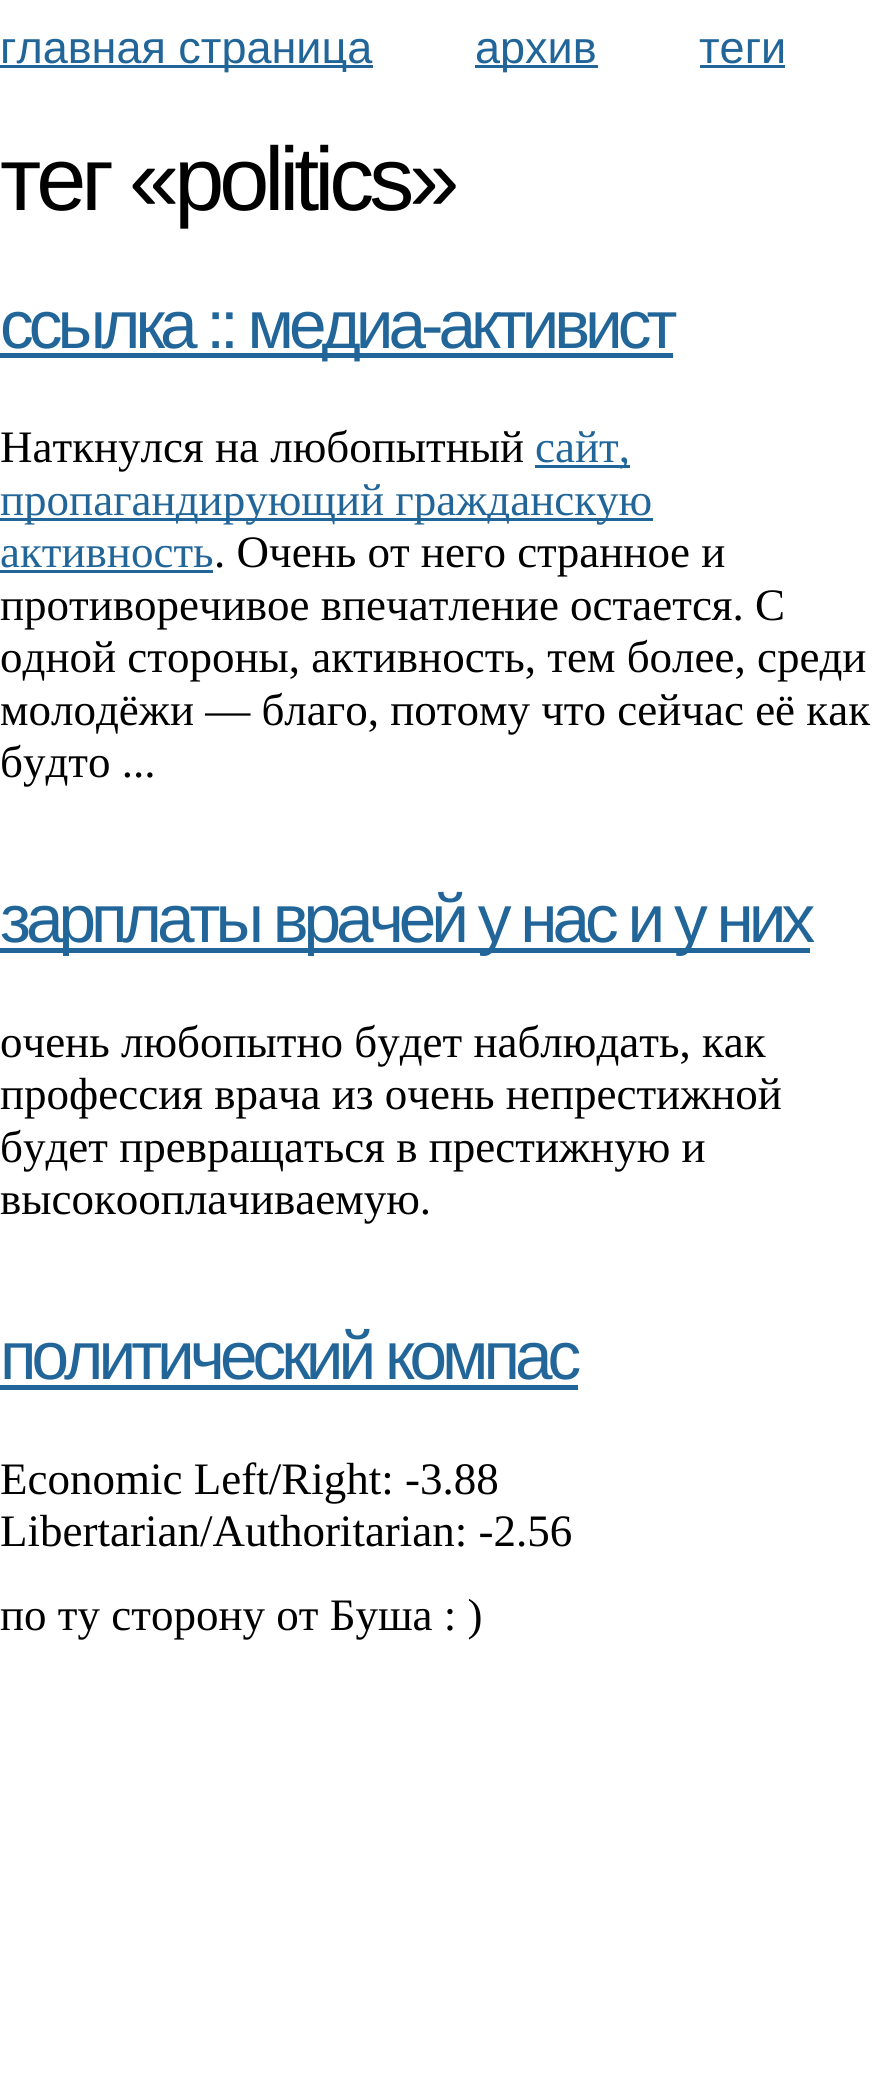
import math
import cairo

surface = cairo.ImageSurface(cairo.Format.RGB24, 887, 2099)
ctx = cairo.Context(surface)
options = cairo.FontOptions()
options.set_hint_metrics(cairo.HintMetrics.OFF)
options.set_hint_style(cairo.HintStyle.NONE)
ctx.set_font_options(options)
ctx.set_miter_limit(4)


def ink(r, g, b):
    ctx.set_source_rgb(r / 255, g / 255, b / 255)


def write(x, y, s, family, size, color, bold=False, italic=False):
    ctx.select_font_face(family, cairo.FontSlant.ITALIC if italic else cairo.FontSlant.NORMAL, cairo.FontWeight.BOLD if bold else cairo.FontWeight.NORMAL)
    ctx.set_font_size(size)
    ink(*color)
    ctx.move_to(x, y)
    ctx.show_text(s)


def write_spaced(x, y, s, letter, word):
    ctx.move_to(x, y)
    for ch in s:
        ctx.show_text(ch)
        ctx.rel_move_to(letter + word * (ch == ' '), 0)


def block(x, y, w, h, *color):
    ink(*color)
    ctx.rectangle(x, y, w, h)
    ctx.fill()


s1 = dict(family="Liberation Sans", size=45, color=(34, 102, 153))
s2 = dict(family="Liberation Serif", size=45, color=(0, 0, 0))
s3 = dict(family="Liberation Serif", size=45, color=(34, 102, 153))

ink(255, 255, 255)
ctx.paint()
block(0, 65, 373, 3, 34, 102, 153)
write(0, 63, "главная страница", **s1)
block(475, 65, 123, 3, 34, 102, 153)
write(475, 63, "архив", **s1)
write(699, 63, "теги", **s1)
block(700, 65, 85, 3, 34, 102, 153)
ctx.set_font_size(90)
ink(0, 0, 0)
write_spaced(0, 210, "тег «politics»", -5, 0)
block(0, 353, 673, 5, 34, 102, 153)
ctx.set_font_size(67.5)
write_spaced(0, 348, "ссылка :: медиа-активист", -5, 0)
write(0, 462, "Наткнулся на любопытный", **s2)
block(535, 465, 95, 3, 34, 102, 153)
write(535, 462, "сайт,", **s3)
block(0, 518, 653, 3, 34, 102, 153)
write(0, 515, "пропагандирующий гражданскую", **s3)
write(0, 567, "активность", **s3)
block(0, 570, 213, 3, 34, 102, 153)
write(214, 567, ". Очень от него странное и", **s2)
write(0, 620, "противоречивое впечатление остается. С", **s2)
write(0, 672, "одной стороны, активность, тем более, среди", **s2)
write(0, 725, "молодёжи — благо, потому что сейчас её как", **s2)
write(0, 777, "будто ...", **s2)
block(0, 948, 810, 5, 34, 102, 153)
ctx.select_font_face("Liberation Sans")
ctx.set_font_size(67.5)
write_spaced(0, 942, "зарплаты врачей у нас и у них", -5, 0)
write(0, 1057, "очень любопытно будет наблюдать, как", **s2)
write(0, 1109, "профессия врача из очень непрестижной", **s2)
write(0, 1162, "будет превращаться в престижную и", **s2)
write(0, 1214, "высокооплачиваемую.", **s2)
ctx.select_font_face("Liberation Sans")
ctx.set_font_size(67.5)
ink(34, 102, 153)
write_spaced(0, 1379, "политический компас", -5, 0)
block(0, 1385, 578, 5, 34, 102, 153)
write(0, 1494, "Economic Left/Right: -3.88", **s2)
write(0, 1546, "Libertarian/Authoritarian: -2.56", **s2)
write(0, 1630, "по ту сторону от Буша : )", **s2)
surface.write_to_png("screenshot.png")
